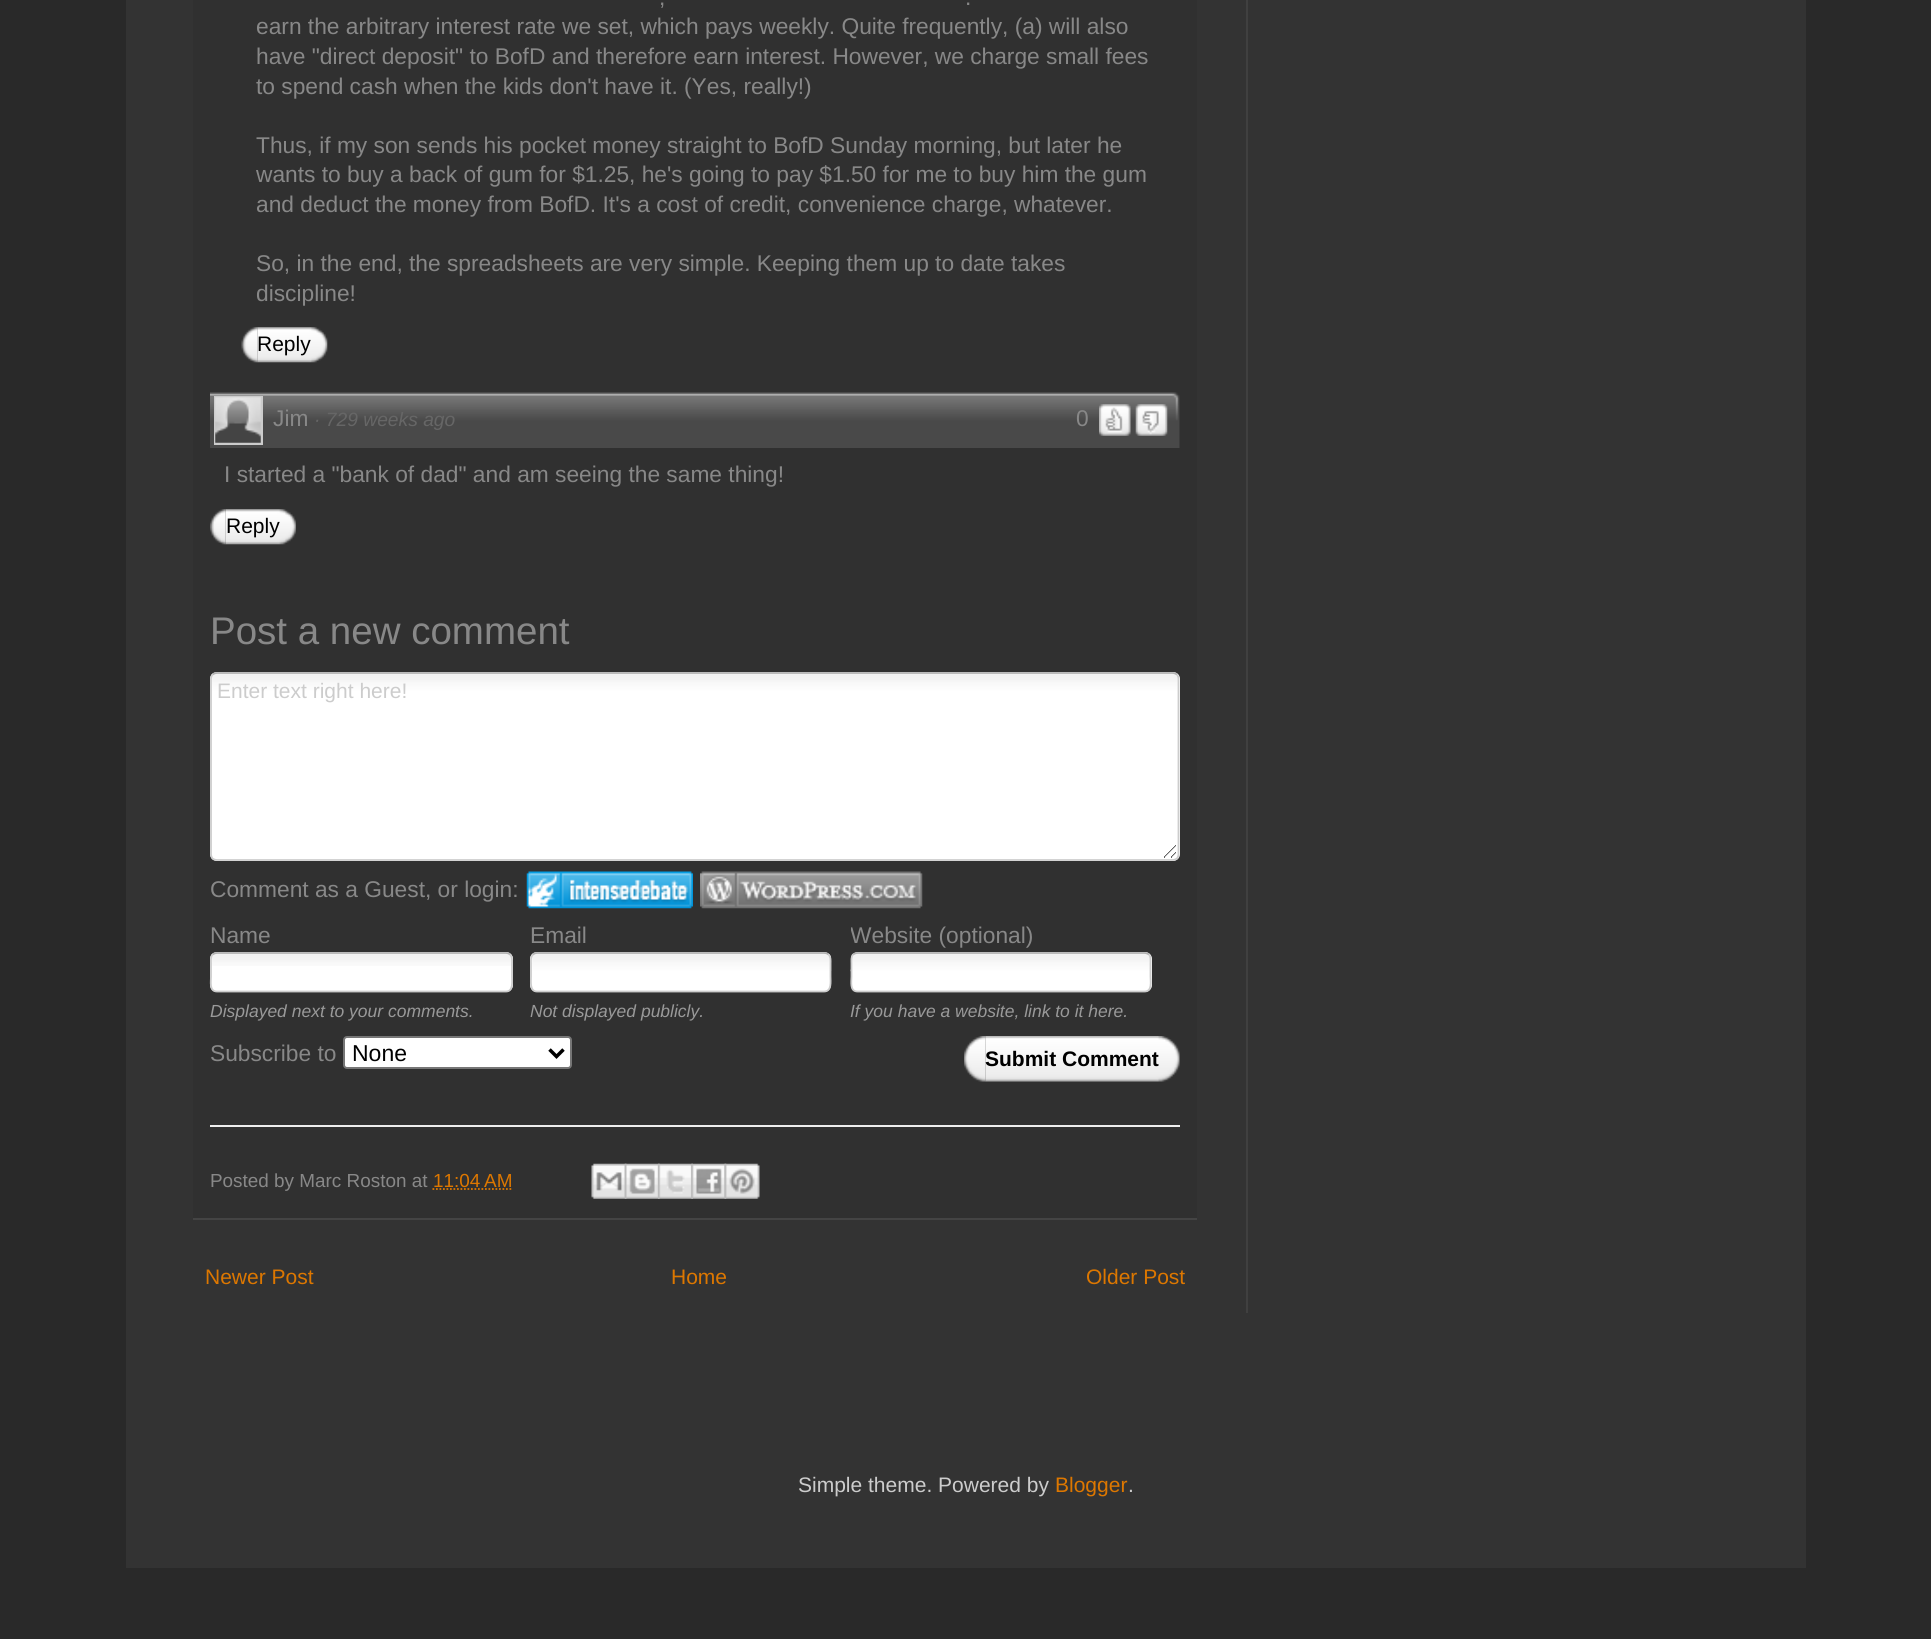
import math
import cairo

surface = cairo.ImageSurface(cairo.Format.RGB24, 1931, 1639)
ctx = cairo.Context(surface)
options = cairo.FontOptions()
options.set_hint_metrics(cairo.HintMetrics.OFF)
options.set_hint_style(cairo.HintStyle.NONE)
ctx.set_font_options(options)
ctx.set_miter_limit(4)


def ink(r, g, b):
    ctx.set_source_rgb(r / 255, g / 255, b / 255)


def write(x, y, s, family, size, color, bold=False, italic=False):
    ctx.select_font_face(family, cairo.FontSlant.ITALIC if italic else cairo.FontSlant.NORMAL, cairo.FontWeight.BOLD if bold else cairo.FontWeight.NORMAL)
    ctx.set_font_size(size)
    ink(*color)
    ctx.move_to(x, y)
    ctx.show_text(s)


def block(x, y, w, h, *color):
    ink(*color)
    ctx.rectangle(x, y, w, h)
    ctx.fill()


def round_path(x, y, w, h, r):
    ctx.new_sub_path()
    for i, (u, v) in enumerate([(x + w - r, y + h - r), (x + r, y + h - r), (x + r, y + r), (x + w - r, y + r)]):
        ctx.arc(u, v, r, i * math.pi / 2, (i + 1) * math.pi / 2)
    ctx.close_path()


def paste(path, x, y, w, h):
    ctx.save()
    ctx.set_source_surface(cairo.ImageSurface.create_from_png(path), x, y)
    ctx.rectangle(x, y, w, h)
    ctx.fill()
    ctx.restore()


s1 = dict(family="Liberation Sans", size=22.75, color=(136, 136, 136))
s2 = dict(family="Liberation Sans", size=21, color=(0, 0, 0))
s3 = dict(family="Liberation Sans", size=19.25, color=(102, 102, 102), italic=True)
s4 = dict(family="Liberation Sans", size=38.5, color=(136, 136, 136))
s5 = dict(family="Liberation Sans", size=21, color=(204, 204, 204))
s6 = dict(family="Liberation Sans", size=17.5, color=(153, 153, 153), italic=True)
s7 = dict(family="Liberation Sans", size=23, color=(0, 0, 0))
s8 = dict(family="Liberation Sans", size=21, color=(0, 0, 0), bold=True)
s9 = dict(family="Liberation Sans", size=18.9, color=(136, 136, 136))
s10 = dict(family="Liberation Sans", size=18.9, color=(221, 119, 0))
s11 = dict(family="Liberation Sans", size=21, color=(221, 119, 0))

ink(41, 41, 41)
ctx.paint()
block(126, 0, 1680, 1568, 51, 51, 51)
block(193, 0, 1004, 1218, 48, 48, 48)
block(193, 1218, 1004, 2, 68, 68, 68)
write(659, 5, ",", **s1)
write(965, 5, ".", **s1)
write(256, 34, "earn the arbitrary interest rate we set, which pays weekly. Quite frequently, (a) will also", **s1)
write(256, 64, "have \"direct deposit\" to BofD and therefore earn interest. However, we charge small fees", **s1)
write(256, 94, "to spend cash when the kids don't have it. (Yes, really!)", **s1)
write(256, 153, "Thus, if my son sends his pocket money straight to BofD Sunday morning, but later he", **s1)
write(256, 182, "wants to buy a back of gum for $1.25, he's going to pay $1.50 for me to buy him the gum", **s1)
write(256, 212, "and deduct the money from BofD. It's a cost of credit, convenience charge, whatever.", **s1)
write(256, 271, "So, in the end, the spreadsheets are very simple. Keeping them up to date takes", **s1)
write(256, 301, "discipline!", **s1)
paste("pic1.png", 241, 327, 17, 36)
paste("pic2.png", 257, 327, 71, 36)
write(257, 351, "Reply", **s2)
paste("pic3.png", 210, 392, 970, 56)
block(214, 396, 49, 49, 204, 204, 204)
paste("pic4.png", 215, 397, 46, 46)
write(273, 426, "Jim", **s1)
write(314, 426, "· 729 weeks ago", **s3)
write(1076, 426, "0", **s1)
paste("pic5.png", 1099, 404, 32, 32)
paste("pic6.png", 1135, 404, 33, 32)
write(224, 482, "I started a \"bank of dad\" and am seeing the same thing!", **s1)
paste("pic7.png", 210, 509, 16, 36)
paste("pic8.png", 225, 509, 71, 36)
write(226, 533, "Reply", **s2)
write(210, 644, "Post a new comment", **s4)
ink(255, 255, 255)
round_path(210, 672, 970, 189, 7)
ctx.fill()
paste("pic9.png", 211, 673, 968, 185)
ctx.new_path()
ctx.move_to(212.5, 674.5)
ctx.curve_to(214, 673.5, 215.5, 673, 217, 673)
ctx.line_to(1172.5, 673)
ctx.curve_to(1174, 673, 1175.5, 673.5, 1177, 674.5)
ink(176, 176, 176)
ctx.set_line_width(1.8)
ctx.stroke()
ctx.new_path()
ctx.move_to(1177, 674.5)
ctx.curve_to(1178, 676, 1178.5, 677.5, 1178.5, 679)
ctx.line_to(1178.5, 854)
ctx.curve_to(1178.5, 855.5, 1178, 857, 1177, 858.5)
ctx.curve_to(1175.5, 859.5, 1174, 860, 1172.5, 860)
ctx.line_to(217, 860)
ctx.curve_to(215.5, 860, 214, 859.5, 212.5, 858.5)
ctx.curve_to(211.5, 857, 211, 855.5, 211, 854)
ctx.line_to(211, 679)
ctx.curve_to(211, 677.5, 211.5, 676, 212.5, 674.5)
ink(204, 204, 204)
ctx.stroke()
write(217, 698, "Enter text right here!", **s5)
write(210, 897, "Comment as a Guest, or login:", **s1)
paste("pic10.png", 526, 871, 167, 38)
paste("pic11.png", 700, 871, 223, 38)
write(210, 943, "Name", **s1)
write(530, 943, "Email", **s1)
ctx.save()
ctx.rectangle(851, 915, 182, 37)
ctx.clip()
write(850, 943, "Website (optional)", **s1)
ctx.restore()
ink(255, 255, 255)
round_path(210, 952, 303, 40, 7)
ctx.fill()
paste("pic12.png", 211, 953, 302, 13)
ctx.new_path()
ctx.move_to(212.5, 954.5)
ctx.curve_to(214, 953.5, 215.5, 953, 217, 953)
ctx.line_to(506, 953)
ctx.curve_to(507.5, 953, 509, 953.5, 510, 954.5)
ink(176, 176, 176)
ctx.stroke()
ctx.new_path()
ctx.move_to(510, 954.5)
ctx.curve_to(512.5, 957, 512, 960.5, 512, 963.5)
ctx.line_to(512, 976.5)
ctx.curve_to(512, 981.5, 513.5, 991.5, 506, 991.5)
ctx.line_to(217, 991.5)
ctx.curve_to(209, 991.5, 211, 981.5, 211, 976.5)
ctx.line_to(211, 963.5)
ctx.curve_to(211, 960.5, 210.5, 957, 212.5, 954.5)
ink(204, 204, 204)
ctx.stroke()
write(210, 1017, "Displayed next to your comments.", **s6)
ink(255, 255, 255)
round_path(530, 952, 301, 40, 7)
ctx.fill()
paste("pic13.png", 532, 953, 300, 18)
ctx.new_path()
ctx.move_to(533, 954.5)
ctx.curve_to(534, 953.5, 535.5, 953, 537, 953)
ctx.line_to(824, 953)
ctx.curve_to(826, 953, 827.5, 953.5, 828.5, 954.5)
ink(176, 176, 176)
ctx.stroke()
ctx.new_path()
ctx.move_to(828.5, 954.5)
ctx.curve_to(831, 957, 830.5, 960.5, 830.5, 963.5)
ctx.line_to(830.5, 976.5)
ctx.curve_to(830.5, 981.5, 832, 991.5, 824, 991.5)
ctx.line_to(537, 991.5)
ctx.curve_to(529.5, 991.5, 531, 981.5, 531, 976.5)
ctx.line_to(531, 963.5)
ctx.curve_to(531, 960.5, 530.5, 957, 533, 954.5)
ink(204, 204, 204)
ctx.stroke()
write(530, 1017, "Not displayed publicly.", **s6)
ink(255, 255, 255)
round_path(851, 952, 301, 40, 7)
ctx.fill()
paste("pic14.png", 850, 953, 301, 19)
ctx.new_path()
ctx.move_to(853, 954.5)
ctx.curve_to(854.5, 953.5, 856, 953, 857.5, 953)
ctx.line_to(1144.5, 953)
ctx.curve_to(1146, 953, 1147.5, 953.5, 1149, 954.5)
ink(176, 176, 176)
ctx.stroke()
ctx.new_path()
ctx.move_to(1149, 954.5)
ctx.curve_to(1151, 957, 1150.5, 960.5, 1150.5, 963.5)
ctx.line_to(1150.5, 976.5)
ctx.curve_to(1150.5, 981.5, 1152.5, 991.5, 1144.5, 991.5)
ctx.line_to(857.5, 991.5)
ctx.curve_to(849.5, 991.5, 851.5, 981.5, 851.5, 976.5)
ctx.line_to(851.5, 963.5)
ctx.curve_to(851.5, 960.5, 851, 957, 853, 954.5)
ink(204, 204, 204)
ctx.stroke()
write(850, 1017, "If you have a website, link to it here.", **s6)
write(210, 1061, "Subscribe to", **s1)
ink(255, 255, 255)
round_path(344, 1037, 227, 31, 3)
ctx.fill_preserve()
ink(118, 118, 118)
ctx.set_line_width(2)
ctx.stroke()
ctx.new_path()
ctx.move_to(549.5, 1049.5)
ctx.line_to(556.5, 1056.5)
ctx.line_to(563.5, 1049.5)
ink(0, 0, 0)
ctx.set_line_width(3.5)
ctx.stroke()
write(352, 1061, "None", **s7)
paste("pic15.png", 964, 1036, 22, 46)
paste("pic16.png", 985, 1036, 195, 46)
write(985, 1066, "Submit Comment", **s8)
block(210, 1125, 970, 2, 238, 238, 238)
write(210, 1187, "Posted by Marc Roston at", **s9)
write(433, 1187, "11:04 AM", **s10)
ctx.new_path()
ctx.move_to(432.5, 1189)
ctx.line_to(512, 1189)
ctx.set_line_width(1.8)
ctx.set_dash([1.75, 1.75])
ctx.stroke()
paste("pic17.png", 591, 1163, 36, 36)
paste("pic18.png", 624, 1163, 36, 36)
paste("pic19.png", 658, 1163, 35, 36)
paste("pic20.png", 691, 1163, 36, 36)
paste("pic21.png", 724, 1163, 36, 36)
write(205, 1284, "Newer Post", **s11)
write(671, 1284, "Home", **s11)
write(1086, 1284, "Older Post", **s11)
block(1246, 0, 2, 1313, 64, 64, 64)
write(798, 1492, "Simple theme. Powered by", **s5)
write(1055, 1492, "Blogger", **s11)
write(1128, 1492, ".", **s5)
surface.write_to_png("screenshot.png")
